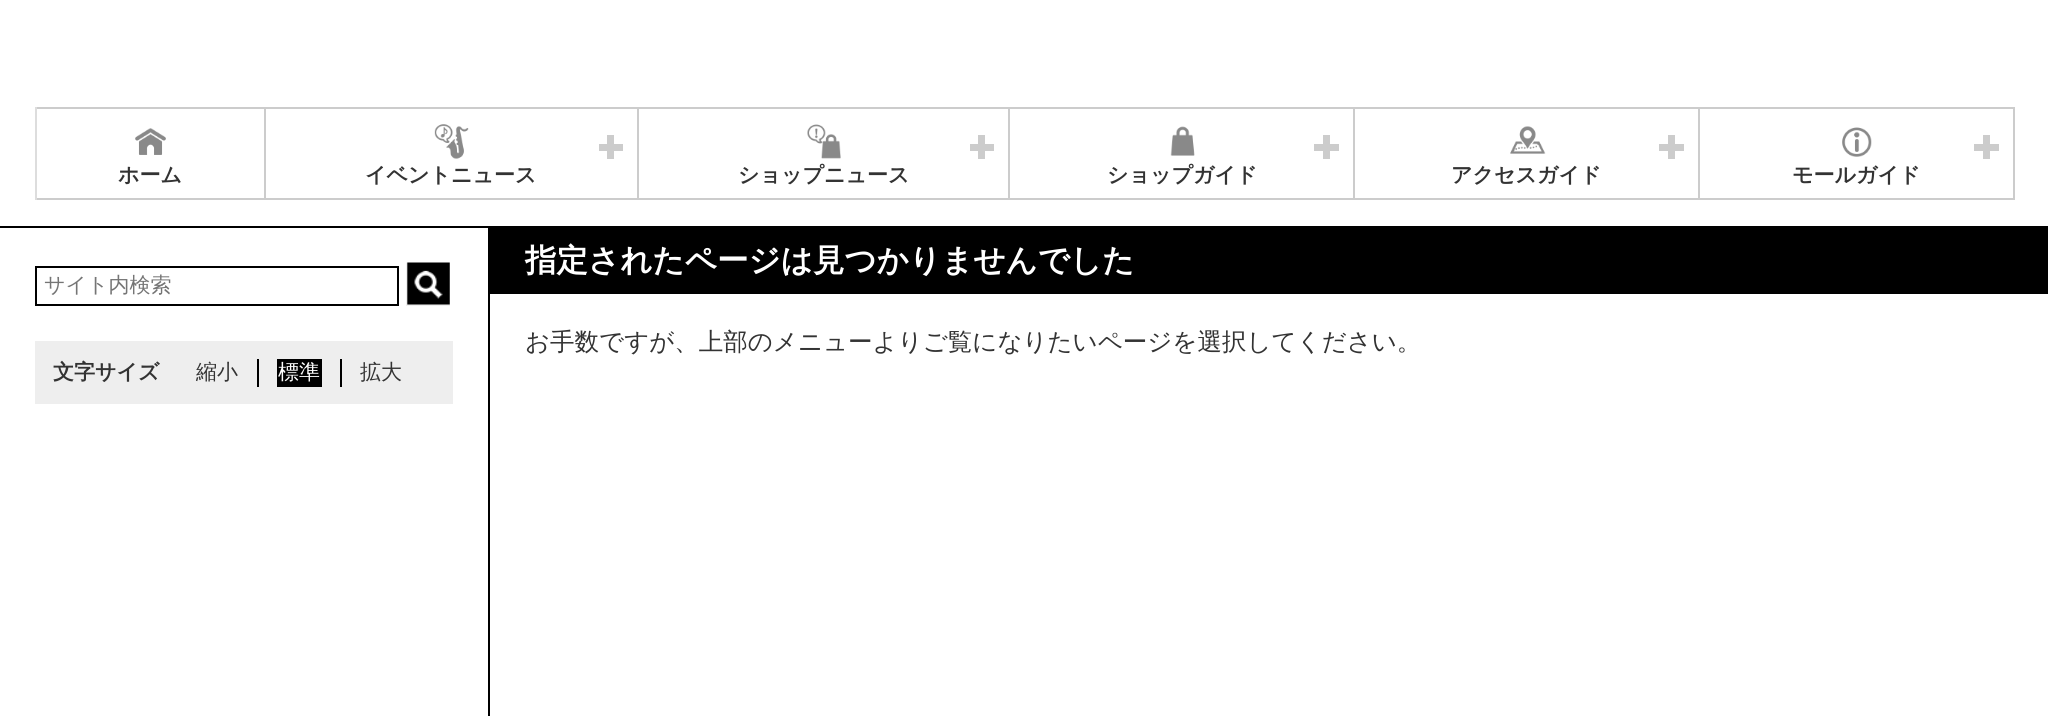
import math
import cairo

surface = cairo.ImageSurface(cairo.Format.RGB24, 2048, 716)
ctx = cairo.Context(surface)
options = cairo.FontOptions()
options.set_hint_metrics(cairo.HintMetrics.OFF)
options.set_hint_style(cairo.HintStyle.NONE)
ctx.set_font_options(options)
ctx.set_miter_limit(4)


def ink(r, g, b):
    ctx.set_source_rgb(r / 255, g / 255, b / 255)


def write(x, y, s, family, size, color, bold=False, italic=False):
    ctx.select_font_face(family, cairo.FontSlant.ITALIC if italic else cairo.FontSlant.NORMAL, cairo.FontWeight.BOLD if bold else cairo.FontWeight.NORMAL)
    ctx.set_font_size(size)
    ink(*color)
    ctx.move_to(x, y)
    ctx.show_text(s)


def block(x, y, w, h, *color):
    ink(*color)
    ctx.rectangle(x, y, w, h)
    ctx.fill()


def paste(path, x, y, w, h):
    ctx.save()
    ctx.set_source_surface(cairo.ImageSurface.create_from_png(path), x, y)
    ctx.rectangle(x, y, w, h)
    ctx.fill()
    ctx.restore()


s1 = dict(family="WenQuanYi Zen Hei", size=21, color=(51, 51, 51), bold=True)
s2 = dict(family="WenQuanYi Zen Hei Medium", size=21, color=(117, 117, 117))
s3 = dict(family="WenQuanYi Zen Hei Medium", size=21, color=(51, 51, 51))
s4 = dict(family="WenQuanYi Zen Hei Medium", size=21, color=(255, 255, 255))
s5 = dict(family="WenQuanYi Zen Hei", size=31.5, color=(255, 255, 255), bold=True)
s6 = dict(family="WenQuanYi Zen Hei Medium", size=24.5, color=(51, 51, 51))

ink(255, 255, 255)
ctx.paint()
block(0, 226, 2048, 2, 0, 0, 0)
block(35, 107, 2, 93, 221, 221, 221)
paste("pic1.png", 135, 128, 31, 27)
block(37, 107, 1662, 2, 204, 204, 204)
block(264, 107, 2, 93, 204, 204, 204)
block(37, 198, 229, 2, 204, 204, 204)
write(118, 182, "ホーム", **s1)
paste("pic2.png", 434, 124, 35, 35)
block(599, 144, 24, 7, 204, 204, 204)
block(607, 135, 7, 24, 204, 204, 204)
block(637, 107, 2, 93, 204, 204, 204)
block(266, 198, 373, 2, 204, 204, 204)
write(365, 182, "イベントニュース", **s1)
paste("pic3.png", 807, 124, 34, 35)
block(970, 144, 24, 7, 204, 204, 204)
block(978, 135, 7, 24, 204, 204, 204)
block(1008, 107, 2, 93, 204, 204, 204)
block(639, 198, 371, 2, 204, 204, 204)
write(738, 182, "ショップニュース", **s1)
paste("pic4.png", 1170, 126, 25, 30)
block(1314, 144, 25, 7, 204, 204, 204)
block(1323, 135, 7, 24, 204, 204, 204)
block(1353, 107, 2, 93, 204, 204, 204)
block(1010, 198, 345, 2, 204, 204, 204)
write(1107, 182, "ショップガイド", **s1)
paste("pic5.png", 1510, 126, 36, 28)
block(1659, 144, 25, 7, 204, 204, 204)
block(1668, 135, 7, 24, 204, 204, 204)
block(1698, 107, 2, 93, 204, 204, 204)
block(1355, 198, 344, 2, 204, 204, 204)
write(1451, 182, "アクセスガイド", **s1)
paste("pic6.png", 1842, 127, 30, 30)
block(1974, 144, 25, 7, 204, 204, 204)
block(1983, 135, 7, 24, 204, 204, 204)
block(1699, 107, 315, 2, 204, 204, 204)
block(2013, 107, 2, 93, 204, 204, 204)
block(1699, 198, 315, 2, 204, 204, 204)
write(1792, 182, "モールガイド", **s1)
block(488, 228, 2, 488, 0, 0, 0)
ctx.rectangle(36, 267, 362, 38)
ctx.stroke()
write(44, 292, "サイト内検索", **s2)
block(406, 263, 44, 43, 239, 239, 239)
paste("pic7.png", 406, 262, 44, 43)
block(35, 341, 418, 63, 238, 238, 238)
write(53, 379, "文字サイズ", **s1)
write(196, 379, "縮小", **s3)
block(257, 359, 2, 28, 0, 0, 0)
block(277, 359, 45, 28, 0, 0, 0)
write(278, 379, "標準", **s4)
block(340, 359, 2, 28, 0, 0, 0)
write(360, 379, "拡大", **s3)
block(490, 228, 1558, 66, 0, 0, 0)
write(525, 271, "指定されたページは見つかりませんでした", **s5)
write(525, 350, "お手数ですが、上部のメニューよりご覧になりたいページを選択してください。", **s6)
surface.write_to_png("screenshot.png")
